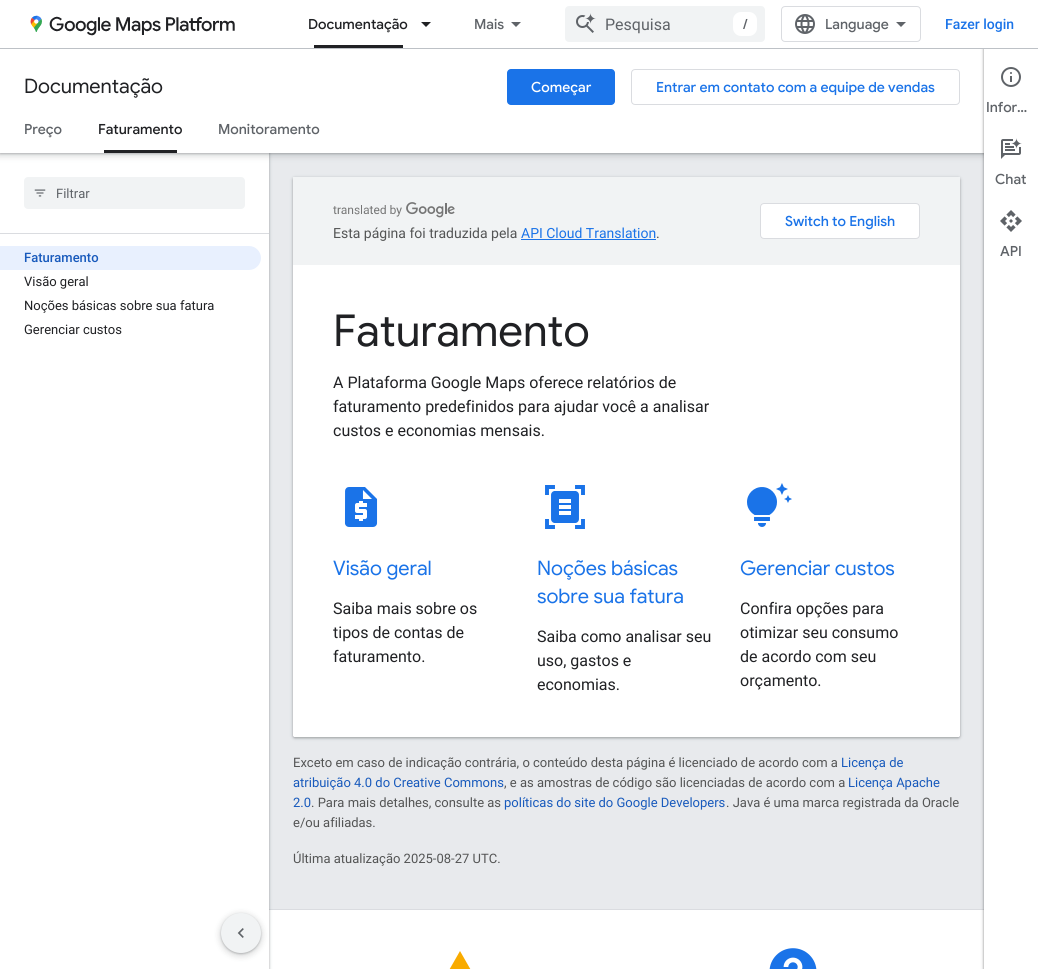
import math
import cairo

surface = cairo.ImageSurface(cairo.Format.RGB24, 1038, 969)
ctx = cairo.Context(surface)
options = cairo.FontOptions()
options.set_hint_metrics(cairo.HintMetrics.OFF)
options.set_hint_style(cairo.HintStyle.NONE)
ctx.set_font_options(options)
ctx.set_miter_limit(4)


def ink(r, g, b):
    ctx.set_source_rgb(r / 255, g / 255, b / 255)


def write(x, y, s, family, size, color, bold=False, italic=False):
    ctx.select_font_face(family, cairo.FontSlant.ITALIC if italic else cairo.FontSlant.NORMAL, cairo.FontWeight.BOLD if bold else cairo.FontWeight.NORMAL)
    ctx.set_font_size(size)
    ink(*color)
    ctx.move_to(x, y)
    ctx.show_text(s)


def block(x, y, w, h, *color):
    ink(*color)
    ctx.rectangle(x, y, w, h)
    ctx.fill()


def round_path(x, y, w, h, r):
    ctx.new_sub_path()
    for i, (u, v) in enumerate([(x + w - r, y + h - r), (x + r, y + h - r), (x + r, y + r), (x + w - r, y + r)]):
        ctx.arc(u, v, r, i * math.pi / 2, (i + 1) * math.pi / 2)
    ctx.close_path()


def blur_box(x, y, w, h, r, blur, alpha):
    ctx.push_group_with_content(cairo.Content.ALPHA)
    ctx.set_operator(cairo.Operator.SOURCE)
    for i in range(15, -16, -2):
        e = blur * i / 6
        if min(w, h) + 2 * e > 0:
            ctx.set_source_rgba(0, 0, 0, alpha * math.erfc((i - 1) / 8.5) / 2)
            round_path(x - e, y - e, w + 2 * e, h + 2 * e, max(0, min(r + e + blur * .6, min(w, h) / 2 + e)))
            ctx.fill()
    ctx.mask(ctx.pop_group())


def paste(path, x, y, w, h):
    ctx.save()
    ctx.set_source_surface(cairo.ImageSurface.create_from_png(path), x, y)
    ctx.rectangle(x, y, w, h)
    ctx.fill()
    ctx.restore()


s1 = dict(family="Google Sans Medium", size=14, color=(32, 33, 36))
s2 = dict(family="Google Sans Medium", size=14, color=(95, 99, 104))
s3 = dict(family="Roboto", size=16, color=(95, 99, 104))
s4 = dict(family="Roboto Medium", size=14, color=(26, 115, 232))
s5 = dict(family="Google Sans", size=20, color=(32, 33, 36))
s6 = dict(family="Google Sans Medium", size=14, color=(255, 255, 255))
s7 = dict(family="Google Sans Medium", size=14, color=(26, 115, 232))
s8 = dict(family="Roboto", size=13, color=(95, 99, 104))
s9 = dict(family="Roboto Medium", size=13, color=(24, 90, 188))
s10 = dict(family="Roboto", size=13, color=(32, 33, 36))
s11 = dict(family="Roboto", size=14, color=(84, 85, 85))
s12 = dict(family="Roboto", size=14, color=(26, 115, 232))
s13 = dict(family="Google Sans", size=44, color=(32, 33, 36))
s14 = dict(family="Roboto", size=16, color=(32, 33, 36))
s15 = dict(family="Google Sans", size=20, color=(26, 115, 232))
s16 = dict(family="Roboto", size=13, color=(84, 85, 85))
s17 = dict(family="Roboto", size=13, color=(24, 90, 188))

ink(232, 234, 237)
ctx.paint()
block(269, 910, 715, 59, 255, 255, 255)
block(269, 909, 715, 1, 218, 220, 224)
ink(60, 64, 67)
blur_box(-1, 0, 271, 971, 0, 1.5, 0.15)
blur_box(0, 1, 269, 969, 0, 1, 0.3)
block(0, 153, 269, 816, 255, 255, 255)
ink(60, 64, 67)
blur_box(-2, 49, 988, 108, 0, 3, 0.15)
blur_box(0, 50, 984, 104, 0, 1, 0.3)
block(0, 49, 984, 104, 255, 255, 255)
ink(0, 0, 0)
blur_box(983, 48, 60, 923, 0, 1.5, 0.15)
blur_box(984, 49, 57, 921, 0, 1, 0.3)
block(0, 0, 1038, 48, 255, 255, 255)
block(0, 48, 1038, 1, 189, 193, 198)
paste("pic1.png", 30, 15, 205, 21)
write(308, 29, "Documentação", **s1)
block(314, 45, 89, 3, 32, 33, 36)
ctx.new_path()
ctx.move_to(421, 22)
ctx.line_to(431, 22)
ctx.line_to(426, 27)
ctx.close_path()
ctx.fill()
write(474, 29, "Mais", **s2)
ctx.new_path()
ctx.move_to(511, 22)
ctx.line_to(521, 22)
ctx.line_to(516, 27)
ctx.close_path()
ctx.fill()
ink(241, 243, 244)
round_path(565, 6, 200, 36, 4)
ctx.fill()
paste("pic2.png", 576, 13, 20, 20)
write(605, 30, "Pesquisa", **s3)
ink(255, 255, 255)
round_path(733, 12, 24, 24, 8)
ctx.fill()
write(743, 29, "/", **s2)
round_path(781.5, 6.5, 139, 35, 3.5)
ink(218, 220, 224)
ctx.set_line_width(1)
ctx.stroke()
paste("pic3.png", 795, 14, 20, 20)
write(825, 29, "Language", **s2)
ctx.new_path()
ctx.move_to(901, 27)
ctx.line_to(896, 22)
ctx.line_to(906, 22)
ctx.close_path()
ctx.fill()
write(945, 29, "Fazer login", **s4)
write(24, 93, "Documentação", **s5)
ink(26, 115, 232)
round_path(507, 69, 108, 36, 4)
ctx.fill()
write(531, 92, "Começar", **s6)
round_path(631.5, 69.5, 328, 35, 3.5)
ink(218, 220, 224)
ctx.stroke()
write(656, 92, "Entrar em contato com a equipe de vendas", **s7)
write(24, 134, "Preço", **s2)
write(98, 134, "Faturamento", **s1)
block(104, 150, 73, 3, 32, 33, 36)
write(218, 134, "Monitoramento", **s2)
block(0, 233, 269, 1, 218, 220, 224)
ink(241, 243, 244)
round_path(24, 177, 221, 32, 4)
ctx.fill()
paste("pic4.png", 34, 189, 12, 8)
write(56, 198, "Filtrar", **s8)
ink(232, 240, 254)
ctx.new_path()
ctx.move_to(0, 246)
ctx.line_to(249, 246)
ctx.curve_to(255.5, 246, 261, 251.5, 261, 258)
ctx.curve_to(261, 264.5, 255.5, 270, 249, 270)
ctx.line_to(0, 270)
ctx.close_path()
ctx.fill()
write(24, 262, "Faturamento", **s9)
write(24, 286, "Visão geral", **s10)
write(24, 310, "Noções básicas sobre sua fatura", **s10)
write(24, 334, "Gerenciar custos", **s10)
block(984, 49, 54, 920, 255, 255, 255)
paste("pic5.png", 1001, 67, 20, 20)
write(986, 112, "Infor…", **s2)
paste("pic6.png", 1001, 138, 21, 21)
write(995, 184, "Chat", **s2)
paste("pic7.png", 1000, 210, 22, 22)
write(1000, 256, "API", **s2)
ink(60, 64, 67)
blur_box(292, 177, 669, 562, 3, 1.5, 0.15)
blur_box(293, 178, 667, 560, 2, 1, 0.3)
ink(255, 255, 255)
round_path(293, 177, 667, 560, 2)
ctx.fill()
block(293, 177, 667, 88, 241, 243, 244)
ink(255, 255, 255)
round_path(760.5, 203.5, 159, 35, 3.5)
ctx.fill_preserve()
ink(218, 220, 224)
ctx.stroke()
write(785, 226, "Switch to English", **s7)
paste("pic8.png", 333, 202, 122, 16)
write(333, 238, "Esta página foi traduzida pela", **s11)
write(521, 238, "API Cloud Translation", **s12)
block(521, 239, 135, 1, 26, 115, 232)
write(656, 238, ".", **s11)
write(333, 346, "Faturamento", **s13)
write(333, 388, "A Plataforma Google Maps oferece relatórios de", **s14)
write(333, 412, "faturamento predefinidos para ajudar você a analisar", **s14)
write(333, 436, "custos e economias mensais.", **s14)
ink(255, 255, 255)
ctx.new_path()
ctx.move_to(293, 483)
ctx.line_to(960, 483)
ctx.line_to(960, 735)
ctx.curve_to(960, 736, 959, 737, 958, 737)
ctx.line_to(295, 737)
ctx.curve_to(294, 737, 293, 736, 293, 735)
ctx.close_path()
ctx.fill()
paste("pic9.png", 344, 487, 34, 40)
write(333, 575, "Visão geral", **s15)
write(333, 614, "Saiba mais sobre os", **s14)
write(333, 638, "tipos de contas de", **s14)
write(333, 662, "faturamento.", **s14)
paste("pic10.png", 545, 485, 40, 44)
write(537, 575, "Noções básicas", **s15)
write(537, 603, "sobre sua fatura", **s15)
write(537, 642, "Saiba como analisar seu", **s14)
write(537, 666, "uso, gastos e", **s14)
write(537, 690, "economias.", **s14)
paste("pic11.png", 747, 483, 45, 44)
write(740, 575, "Gerenciar custos", **s15)
write(740, 614, "Confira opções para", **s14)
write(740, 638, "otimizar seu consumo", **s14)
write(740, 662, "de acordo com seu", **s14)
write(740, 686, "orçamento.", **s14)
write(293, 767, "Exceto em caso de indicação contrária, o conteúdo desta página é licenciado de acordo com a", **s16)
write(841, 767, "Licença de", **s17)
write(293, 787, "atribuição 4.0 do Creative Commons", **s17)
write(504, 787, ", e as amostras de código são licenciadas de acordo com a", **s16)
write(848, 787, "Licença Apache", **s17)
write(293, 807, "2.0", **s17)
write(311, 807, ". Para mais detalhes, consulte as", **s16)
write(504, 807, "políticas do site do Google Developers", **s17)
write(726, 807, ". Java é uma marca registrada da Oracle", **s16)
write(293, 827, "e/ou afiliadas.", **s16)
write(293, 863, "Última atualização 2025-08-27 UTC.", **s16)
ink(249, 171, 0)
ctx.set_fill_rule(cairo.FillRule.EVEN_ODD)
ctx.new_path()
ctx.move_to(460, 951)
ctx.line_to(436, 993)
ctx.line_to(484, 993)
ctx.close_path()
ctx.move_to(462, 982)
ctx.line_to(458, 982)
ctx.line_to(458, 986)
ctx.line_to(462, 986)
ctx.close_path()
ctx.move_to(462, 969)
ctx.line_to(458, 969)
ctx.line_to(458, 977)
ctx.line_to(462, 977)
ctx.close_path()
ctx.fill()
paste("pic12.png", 769, 948, 48, 21)
ink(60, 64, 67)
blur_box(219, 913, 44, 44, 22, 3, 0.15)
blur_box(221, 914, 40, 40, 20, 1, 0.3)
ink(241, 243, 244)
ctx.arc(241, 933, 20, 0, 2 * math.pi)
ctx.fill()
paste("pic13.png", 237, 928, 7, 10)
surface.write_to_png("screenshot.png")
